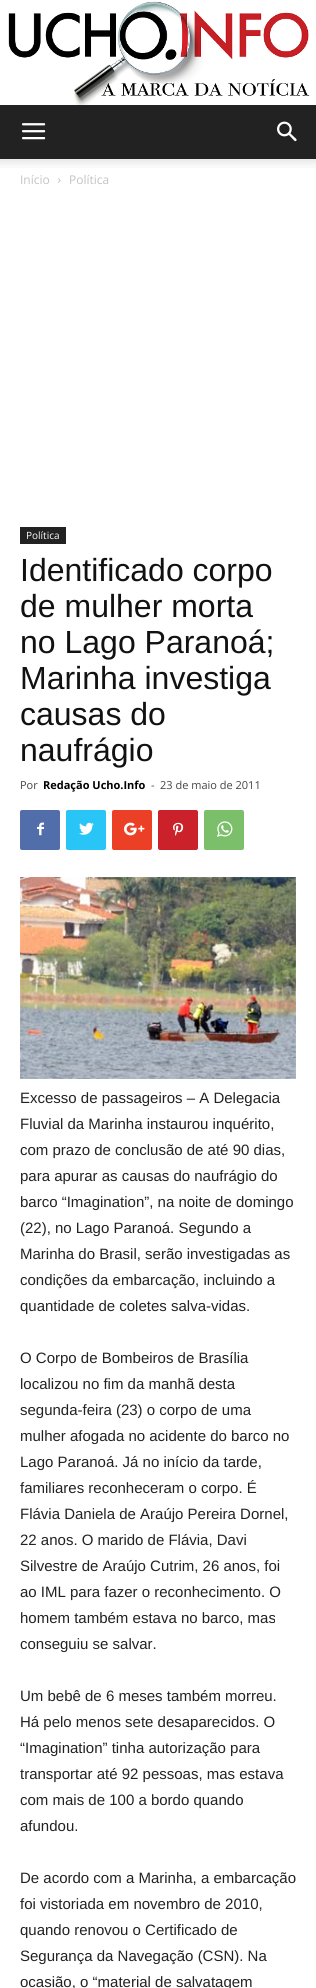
import math
import cairo

surface = cairo.ImageSurface(cairo.Format.RGB24, 316, 1988)
ctx = cairo.Context(surface)
options = cairo.FontOptions()
options.set_hint_metrics(cairo.HintMetrics.OFF)
options.set_hint_style(cairo.HintStyle.NONE)
ctx.set_font_options(options)
ctx.set_miter_limit(4)


def ink(r, g, b):
    ctx.set_source_rgb(r / 255, g / 255, b / 255)


def write(x, y, s, family, size, color, bold=False, italic=False):
    ctx.select_font_face(family, cairo.FontSlant.ITALIC if italic else cairo.FontSlant.NORMAL, cairo.FontWeight.BOLD if bold else cairo.FontWeight.NORMAL)
    ctx.set_font_size(size)
    ink(*color)
    ctx.move_to(x, y)
    ctx.show_text(s)


def block(x, y, w, h, *color):
    ink(*color)
    ctx.rectangle(x, y, w, h)
    ctx.fill()


def round_path(x, y, w, h, r):
    ctx.new_sub_path()
    for i, (u, v) in enumerate([(x + w - r, y + h - r), (x + r, y + h - r), (x + r, y + r), (x + w - r, y + r)]):
        ctx.arc(u, v, r, i * math.pi / 2, (i + 1) * math.pi / 2)
    ctx.close_path()


def paste(path, x, y, w, h):
    ctx.save()
    ctx.set_source_surface(cairo.ImageSurface.create_from_png(path), x, y)
    ctx.rectangle(x, y, w, h)
    ctx.fill()
    ctx.restore()


s1 = dict(family="Open Sans", size=12, color=(195, 195, 195))
s2 = dict(family="Open Sans", size=10, color=(255, 255, 255))
s3 = dict(family="Liberation Sans", size=32, color=(17, 17, 17))
s4 = dict(family="Open Sans", size=11, color=(68, 68, 68))
s5 = dict(family="Open Sans", size=11, color=(0, 0, 0), bold=True)
s6 = dict(family="Liberation Sans", size=15, color=(34, 34, 34))

ink(255, 255, 255)
ctx.paint()
paste("pic1.png", 8, 1, 302, 104)
block(0, 105, 316, 54, 34, 34, 34)
paste("pic2.png", 22, 123, 24, 17)
paste("pic3.png", 277, 121, 20, 21)
paste("pic4.png", 0, 159, 316, 9)
write(20, 184, "Início", **s1)
paste("pic5.png", 58, 178, 3, 5)
write(69, 184, "Política", **s1)
block(20, 527, 46, 17, 34, 34, 34)
write(26, 539, "Política", **s2)
write(20, 581, "Identificado corpo", **s3)
write(20, 617, "de mulher morta", **s3)
write(20, 653, "no Lago Paranoá;", **s3)
write(20, 689, "Marinha investiga", **s3)
write(20, 725, "causas do", **s3)
write(20, 761, "naufrágio", **s3)
write(20, 789, "Por", **s4)
write(43, 789, "Redação Ucho.Info", **s5)
write(151, 789, "-", **s4)
write(160, 789, "23 de maio de 2011", **s4)
ink(81, 110, 171)
round_path(20, 810, 40, 40, 2)
ctx.fill()
paste("pic6.png", 37, 822, 7, 14)
ink(41, 197, 246)
round_path(66, 810, 40, 40, 2)
ctx.fill()
paste("pic7.png", 79, 822, 15, 13)
ink(235, 64, 38)
round_path(112, 810, 40, 40, 2)
ctx.fill()
paste("pic8.png", 124, 822, 21, 14)
ink(202, 33, 42)
round_path(158, 810, 40, 40, 2)
ctx.fill()
paste("pic9.png", 173, 822, 11, 14)
ink(123, 191, 106)
round_path(204, 810, 40, 40, 2)
ctx.fill()
paste("pic10.png", 217, 821, 16, 16)
paste("pic11.png", 20, 877, 276, 202)
write(20, 1103, "Excesso de passageiros – A Delegacia", **s6)
write(20, 1129, "Fluvial da Marinha instaurou inquérito,", **s6)
write(20, 1155, "com prazo de conclusão de até 90 dias,", **s6)
write(20, 1181, "para apurar as causas do naufrágio do", **s6)
write(20, 1207, "barco “Imagination”, na noite de domingo", **s6)
write(20, 1233, "(22), no Lago Paranoá. Segundo a", **s6)
write(20, 1259, "Marinha do Brasil, serão investigadas as", **s6)
write(20, 1285, "condições da embarcação, incluindo a", **s6)
write(20, 1311, "quantidade de coletes salva-vidas.", **s6)
write(20, 1363, "O Corpo de Bombeiros de Brasília", **s6)
write(20, 1389, "localizou no fim da manhã desta", **s6)
write(20, 1415, "segunda-feira (23) o corpo de uma", **s6)
write(20, 1441, "mulher afogada no acidente do barco no", **s6)
write(20, 1467, "Lago Paranoá. Já no início da tarde,", **s6)
write(20, 1493, "familiares reconheceram o corpo. É", **s6)
write(20, 1519, "Flávia Daniela de Araújo Pereira Dornel,", **s6)
write(20, 1545, "22 anos. O marido de Flávia, Davi", **s6)
write(20, 1571, "Silvestre de Araújo Cutrim, 26 anos, foi", **s6)
write(20, 1597, "ao IML para fazer o reconhecimento. O", **s6)
write(20, 1623, "homem também estava no barco, mas", **s6)
write(20, 1649, "conseguiu se salvar.", **s6)
write(20, 1701, "Um bebê de 6 meses também morreu.", **s6)
write(20, 1727, "Há pelo menos sete desaparecidos. O", **s6)
write(20, 1753, "“Imagination” tinha autorização para", **s6)
write(20, 1779, "transportar até 92 pessoas, mas estava", **s6)
write(20, 1805, "com mais de 100 a bordo quando", **s6)
write(20, 1831, "afundou.", **s6)
write(20, 1883, "De acordo com a Marinha, a embarcação", **s6)
write(20, 1909, "foi vistoriada em novembro de 2010,", **s6)
write(20, 1935, "quando renovou o Certificado de", **s6)
write(20, 1961, "Segurança da Navegação (CSN). Na", **s6)
write(20, 1987, "ocasião, o “material de salvatagem", **s6)
surface.write_to_png("screenshot.png")
